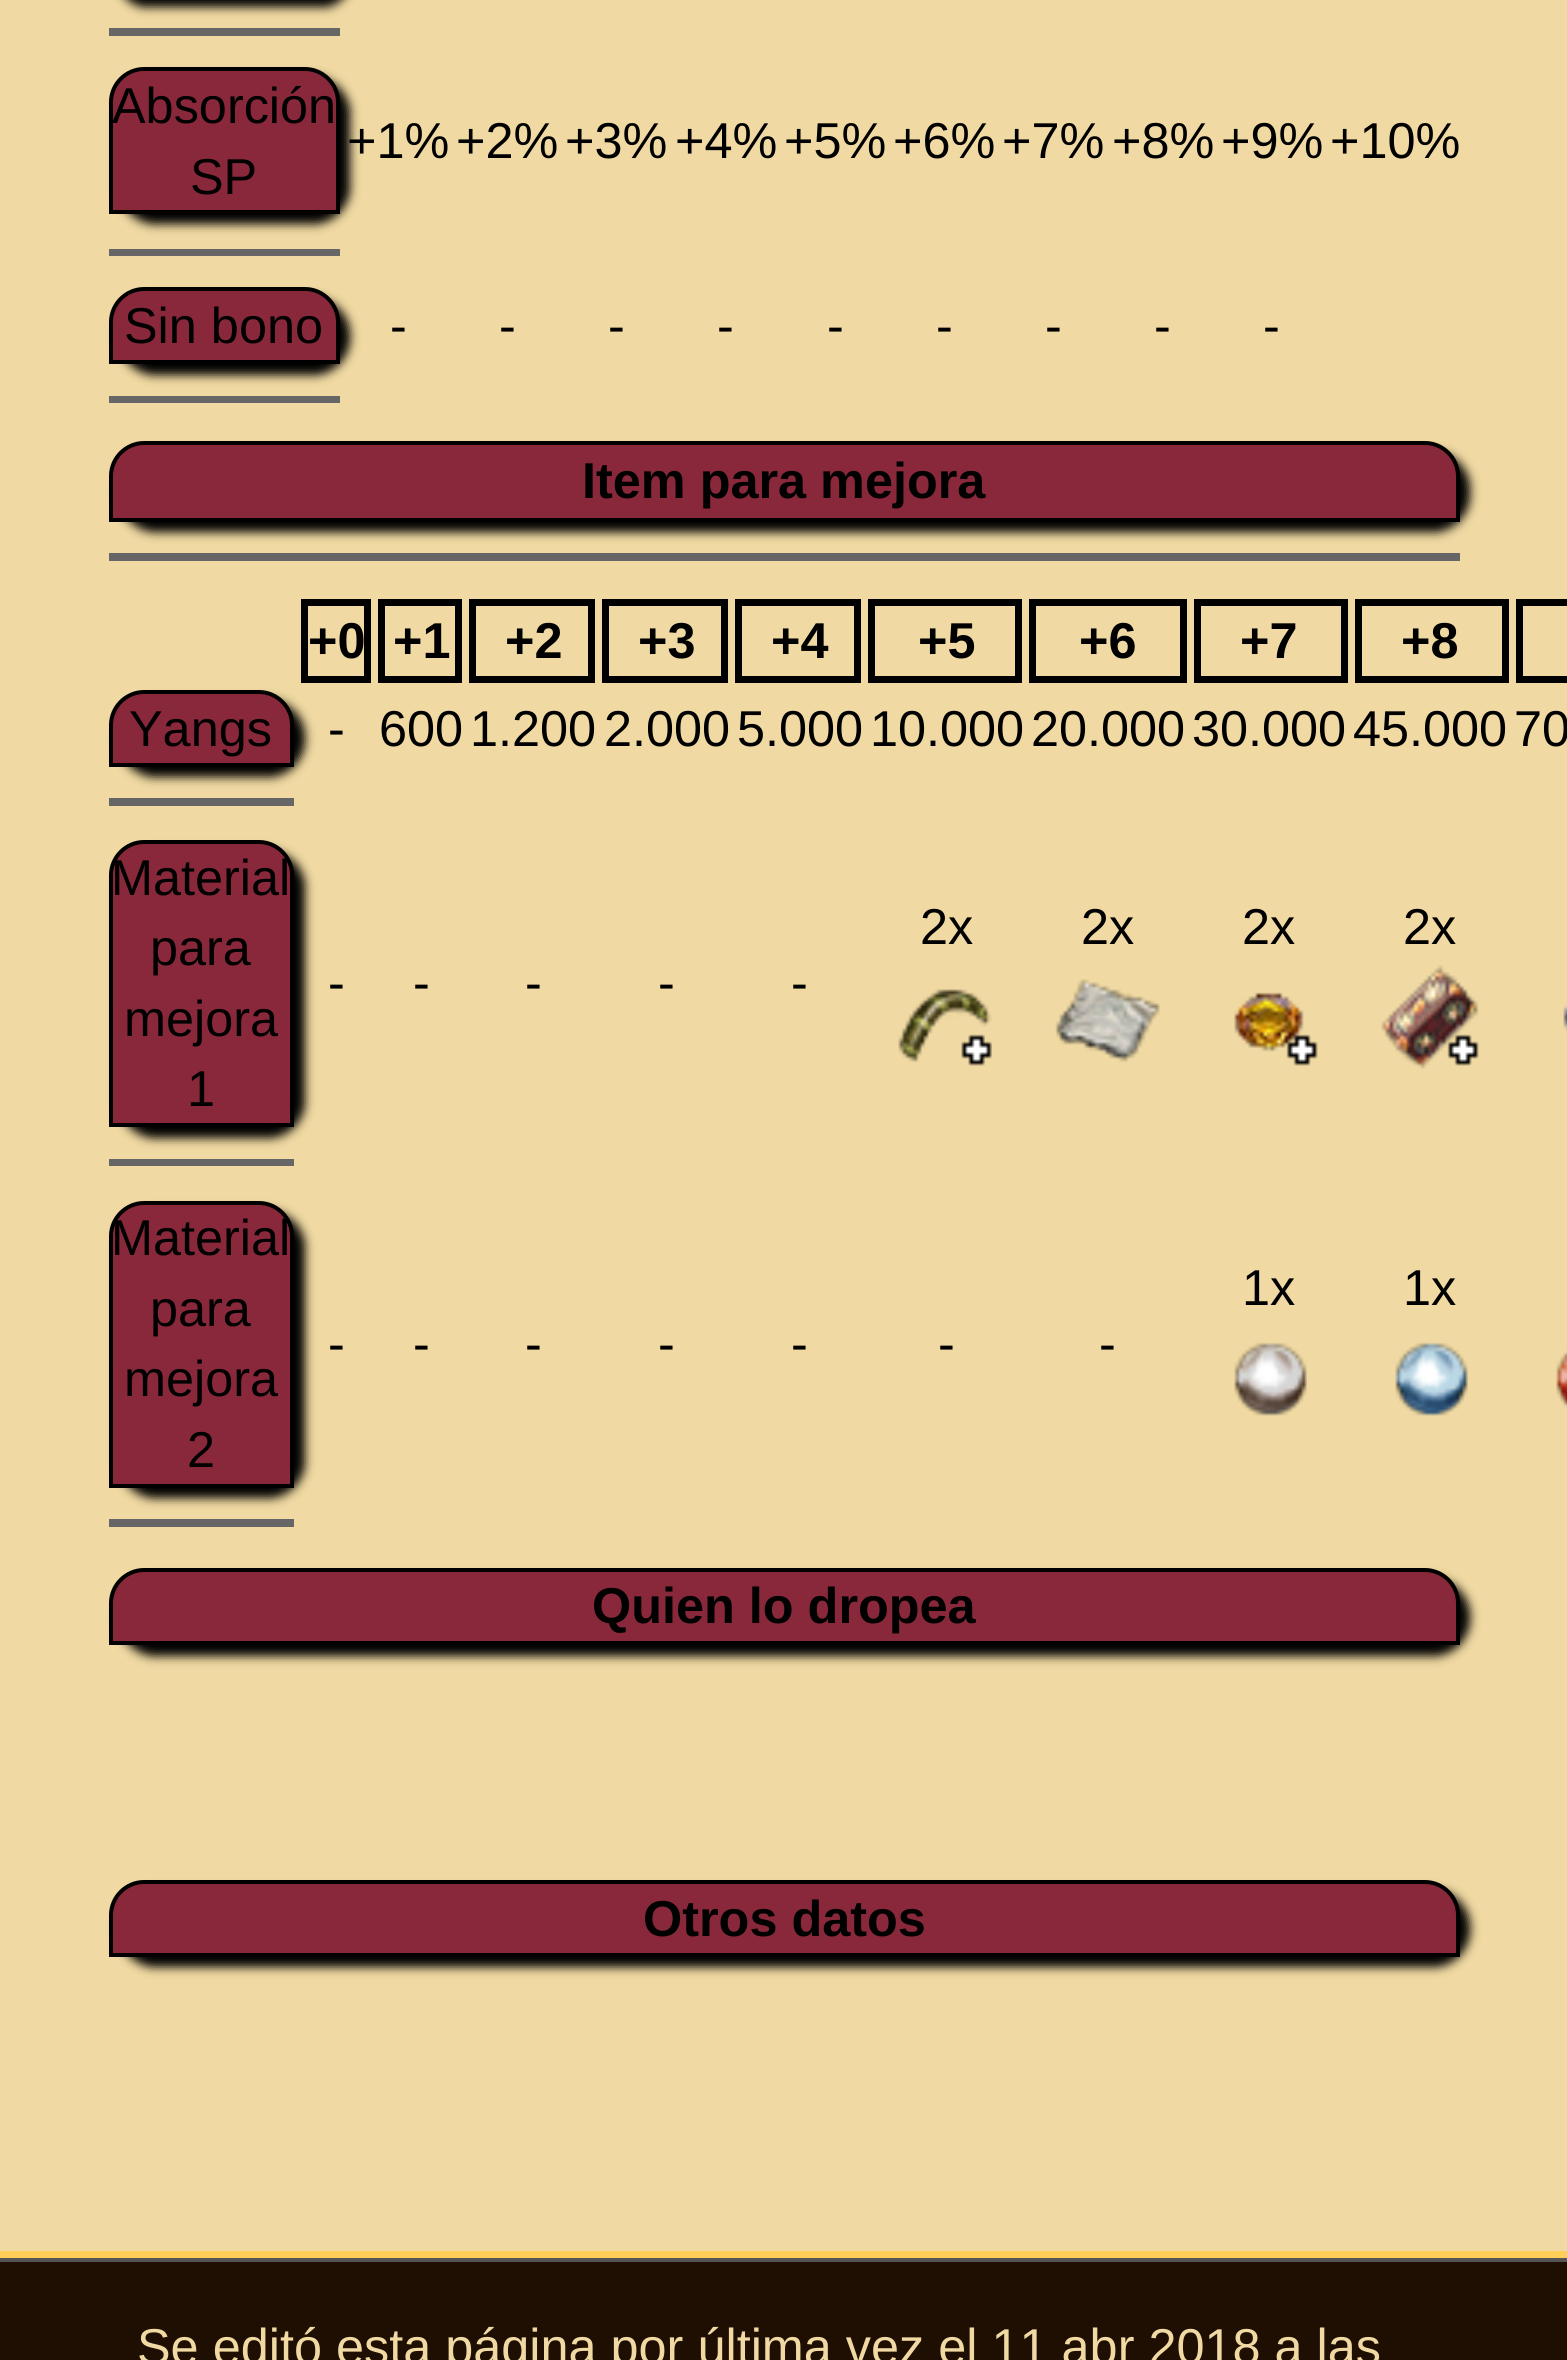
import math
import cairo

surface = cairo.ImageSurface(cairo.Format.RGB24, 1567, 2360)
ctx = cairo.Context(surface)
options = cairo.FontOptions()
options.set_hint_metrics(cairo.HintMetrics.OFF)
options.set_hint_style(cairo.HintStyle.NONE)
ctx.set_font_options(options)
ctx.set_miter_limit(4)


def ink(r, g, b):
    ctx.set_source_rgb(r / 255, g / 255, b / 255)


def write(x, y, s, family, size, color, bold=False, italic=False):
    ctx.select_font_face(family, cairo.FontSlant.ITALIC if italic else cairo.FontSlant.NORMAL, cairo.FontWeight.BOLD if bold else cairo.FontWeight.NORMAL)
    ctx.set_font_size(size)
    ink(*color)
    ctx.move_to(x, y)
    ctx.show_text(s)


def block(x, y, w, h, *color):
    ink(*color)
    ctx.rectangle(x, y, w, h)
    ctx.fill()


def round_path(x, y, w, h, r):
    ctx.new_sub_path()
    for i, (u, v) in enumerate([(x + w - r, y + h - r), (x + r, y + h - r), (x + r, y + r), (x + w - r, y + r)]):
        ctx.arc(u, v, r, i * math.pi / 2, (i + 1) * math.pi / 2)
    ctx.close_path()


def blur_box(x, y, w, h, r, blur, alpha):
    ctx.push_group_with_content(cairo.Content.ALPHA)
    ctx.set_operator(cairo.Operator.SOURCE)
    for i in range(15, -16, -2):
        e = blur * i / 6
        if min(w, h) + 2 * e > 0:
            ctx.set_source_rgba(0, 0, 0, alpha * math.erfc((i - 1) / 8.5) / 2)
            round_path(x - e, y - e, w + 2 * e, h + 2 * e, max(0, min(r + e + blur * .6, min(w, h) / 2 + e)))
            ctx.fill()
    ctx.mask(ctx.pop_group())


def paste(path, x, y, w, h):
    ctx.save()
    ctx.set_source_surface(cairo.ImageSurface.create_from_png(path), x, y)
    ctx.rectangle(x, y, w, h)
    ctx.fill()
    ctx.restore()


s1 = dict(family="Liberation Sans", size=50.4, color=(0, 0, 0))
s2 = dict(family="Liberation Sans", size=50.4, color=(0, 0, 0), bold=True)
s3 = dict(family="Liberation Sans", size=50.4, color=(240, 217, 162))

ink(254, 206, 88)
ctx.paint()
block(0, 0, 1567, 2251, 240, 217, 162)
ink(0, 0, 0)
blur_box(119, -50, 231, 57, 35, 5, 1)
block(109, 28, 231, 8, 102, 102, 102)
ink(0, 0, 0)
blur_box(119, 77, 231, 147, 35, 5, 1)
ink(136, 40, 58)
ctx.new_path()
ctx.move_to(144, 69)
ctx.line_to(305, 69)
ctx.curve_to(323, 69, 338, 84, 338, 102)
ctx.line_to(338, 212)
ctx.line_to(111, 212)
ctx.line_to(111, 102)
ctx.curve_to(111, 84, 126, 69, 144, 69)
ctx.close_path()
ctx.fill_preserve()
ink(0, 0, 0)
ctx.set_line_width(4)
ctx.stroke()
write(112, 123, "Absorción", **s1)
write(190, 194, "SP", **s1)
write(347, 158, "+1%", **s1)
write(456, 158, "+2%", **s1)
write(565, 158, "+3%", **s1)
write(675, 158, "+4%", **s1)
write(784, 158, "+5%", **s1)
write(893, 158, "+6%", **s1)
write(1002, 158, "+7%", **s1)
write(1112, 158, "+8%", **s1)
write(1221, 158, "+9%", **s1)
write(1330, 158, "+10%", **s1)
block(109, 249, 231, 7, 102, 102, 102)
ink(0, 0, 0)
blur_box(119, 298, 231, 77, 35, 5, 1)
ink(136, 40, 58)
ctx.new_path()
ctx.move_to(144, 289)
ctx.line_to(305, 289)
ctx.curve_to(323, 289, 338, 304, 338, 322)
ctx.line_to(338, 362)
ctx.line_to(111, 362)
ctx.line_to(111, 322)
ctx.curve_to(111, 304, 126, 289, 144, 289)
ctx.close_path()
ctx.fill_preserve()
ink(0, 0, 0)
ctx.stroke()
write(124, 343, "Sin bono", **s1)
write(390, 343, "-", **s1)
write(499, 343, "-", **s1)
write(608, 343, "-", **s1)
write(717, 343, "-", **s1)
write(827, 343, "-", **s1)
write(936, 343, "-", **s1)
write(1045, 343, "-", **s1)
write(1154, 343, "-", **s1)
write(1263, 343, "-", **s1)
block(109, 396, 231, 7, 102, 102, 102)
ink(0, 0, 0)
blur_box(119, 452, 1351, 80, 35, 5, 1)
ink(136, 40, 58)
ctx.new_path()
ctx.move_to(144, 443)
ctx.line_to(1425, 443)
ctx.curve_to(1443, 443, 1458, 458, 1458, 476)
ctx.line_to(1458, 520)
ctx.line_to(111, 520)
ctx.line_to(111, 476)
ctx.curve_to(111, 458, 126, 443, 144, 443)
ctx.close_path()
ctx.fill_preserve()
ink(0, 0, 0)
ctx.stroke()
write(582, 498, "Item para mejora", **s2)
block(109, 553, 1351, 8, 102, 102, 102)
ctx.rectangle(304.5, 602.5, 63, 77)
ink(0, 0, 0)
ctx.set_line_width(7)
ctx.stroke()
write(308, 658, "+0", **s2)
ctx.rectangle(381.5, 602.5, 77, 77)
ctx.stroke()
write(393, 658, "+1", **s2)
ctx.rectangle(472.5, 602.5, 119, 77)
ctx.stroke()
write(505, 658, "+2", **s2)
ctx.rectangle(605.5, 602.5, 119, 77)
ctx.stroke()
write(638, 658, "+3", **s2)
ctx.rectangle(738.5, 602.5, 119, 77)
ctx.stroke()
write(771, 658, "+4", **s2)
ctx.rectangle(871.5, 602.5, 147, 77)
ctx.stroke()
write(918, 658, "+5", **s2)
ctx.rectangle(1032.5, 602.5, 151, 77)
ctx.stroke()
write(1079, 658, "+6", **s2)
ctx.rectangle(1197.5, 602.5, 147, 77)
ctx.stroke()
write(1240, 658, "+7", **s2)
ctx.rectangle(1358.5, 602.5, 147, 77)
ctx.stroke()
write(1401, 658, "+8", **s2)
ctx.rectangle(1519.5, 602.5, 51, 77)
ctx.stroke()
ink(0, 0, 0)
blur_box(119, 700, 186, 77, 35, 5, 1)
ink(136, 40, 58)
ctx.new_path()
ctx.move_to(144, 692)
ctx.line_to(259, 692)
ctx.curve_to(277, 692, 292, 707, 292, 725)
ctx.line_to(292, 765)
ctx.line_to(111, 765)
ctx.line_to(111, 725)
ctx.curve_to(111, 707, 126, 692, 144, 692)
ctx.close_path()
ctx.fill_preserve()
ink(0, 0, 0)
ctx.set_line_width(4)
ctx.stroke()
write(129, 746, "Yangs", **s1)
write(328, 746, "-", **s1)
write(379, 746, "600", **s1)
write(470, 746, "1.200", **s1)
write(604, 746, "2.000", **s1)
write(737, 746, "5.000", **s1)
write(870, 746, "10.000", **s1)
write(1031, 746, "20.000", **s1)
write(1192, 746, "30.000", **s1)
write(1353, 746, "45.000", **s1)
write(1514, 746, "70", **s1)
block(109, 798, 185, 8, 102, 102, 102)
ink(0, 0, 0)
blur_box(119, 851, 186, 287, 35, 5, 1)
ink(136, 40, 58)
ctx.new_path()
ctx.move_to(144, 842)
ctx.line_to(259, 842)
ctx.curve_to(277, 842, 292, 857, 292, 875)
ctx.line_to(292, 1125)
ctx.line_to(111, 1125)
ctx.line_to(111, 875)
ctx.curve_to(111, 857, 126, 842, 144, 842)
ctx.close_path()
ctx.fill_preserve()
ink(0, 0, 0)
ctx.stroke()
write(111, 895, "Material", **s1)
write(150, 965, "para", **s1)
write(124, 1036, "mejora", **s1)
write(187, 1106, "1", **s1)
write(920, 944, "2x", **s1)
paste("pic1.png", 898, 989, 94, 77)
write(1081, 944, "2x", **s1)
paste("pic2.png", 1055, 979, 105, 83)
write(1242, 944, "2x", **s1)
paste("pic3.png", 1234, 992, 84, 74)
write(1403, 944, "2x", **s1)
paste("pic4.png", 1381, 965, 98, 104)
write(328, 1000, "-", **s1)
write(413, 1000, "-", **s1)
write(525, 1000, "-", **s1)
write(658, 1000, "-", **s1)
write(791, 1000, "-", **s1)
paste("pic5.png", 1563, 1003, 4, 30)
block(109, 1159, 185, 7, 102, 102, 102)
ink(0, 0, 0)
blur_box(119, 1211, 186, 287, 35, 5, 1)
ink(136, 40, 58)
ctx.new_path()
ctx.move_to(144, 1203)
ctx.line_to(259, 1203)
ctx.curve_to(277, 1203, 292, 1218, 292, 1236)
ctx.line_to(292, 1486)
ctx.line_to(111, 1486)
ctx.line_to(111, 1236)
ctx.curve_to(111, 1218, 126, 1203, 144, 1203)
ctx.close_path()
ctx.fill_preserve()
ink(0, 0, 0)
ctx.stroke()
write(111, 1255, "Material", **s1)
write(150, 1326, "para", **s1)
write(124, 1396, "mejora", **s1)
write(187, 1467, "2", **s1)
write(1242, 1305, "1x", **s1)
paste("pic6.png", 1234, 1342, 73, 74)
write(1403, 1305, "1x", **s1)
paste("pic7.png", 1395, 1342, 73, 74)
write(328, 1361, "-", **s1)
write(413, 1361, "-", **s1)
write(525, 1361, "-", **s1)
write(658, 1361, "-", **s1)
write(791, 1361, "-", **s1)
write(938, 1361, "-", **s1)
write(1099, 1361, "-", **s1)
paste("pic8.png", 1556, 1351, 11, 57)
block(109, 1519, 185, 8, 102, 102, 102)
ink(0, 0, 0)
blur_box(119, 1579, 1351, 77, 35, 5, 1)
ink(136, 40, 58)
ctx.new_path()
ctx.move_to(144, 1570)
ctx.line_to(1425, 1570)
ctx.curve_to(1443, 1570, 1458, 1585, 1458, 1603)
ctx.line_to(1458, 1643)
ctx.line_to(111, 1643)
ctx.line_to(111, 1603)
ctx.curve_to(111, 1585, 126, 1570, 144, 1570)
ctx.close_path()
ctx.fill_preserve()
ink(0, 0, 0)
ctx.stroke()
write(592, 1623, "Quien lo dropea", **s2)
ink(0, 0, 0)
blur_box(119, 1890, 1351, 77, 35, 5, 1)
ink(136, 40, 58)
ctx.new_path()
ctx.move_to(144, 1882)
ctx.line_to(1425, 1882)
ctx.curve_to(1443, 1882, 1458, 1897, 1458, 1915)
ctx.line_to(1458, 1955)
ctx.line_to(111, 1955)
ctx.line_to(111, 1915)
ctx.curve_to(111, 1897, 126, 1882, 144, 1882)
ctx.close_path()
ctx.fill_preserve()
ink(0, 0, 0)
ctx.stroke()
write(643, 1936, "Otros datos", **s2)
block(0, 2262, 1567, 98, 31, 14, 2)
block(0, 2258, 1567, 4, 85, 85, 85)
write(137, 2364, "Se editó esta página por última vez el 11 abr 2018 a las", **s3)
surface.write_to_png("screenshot.png")
